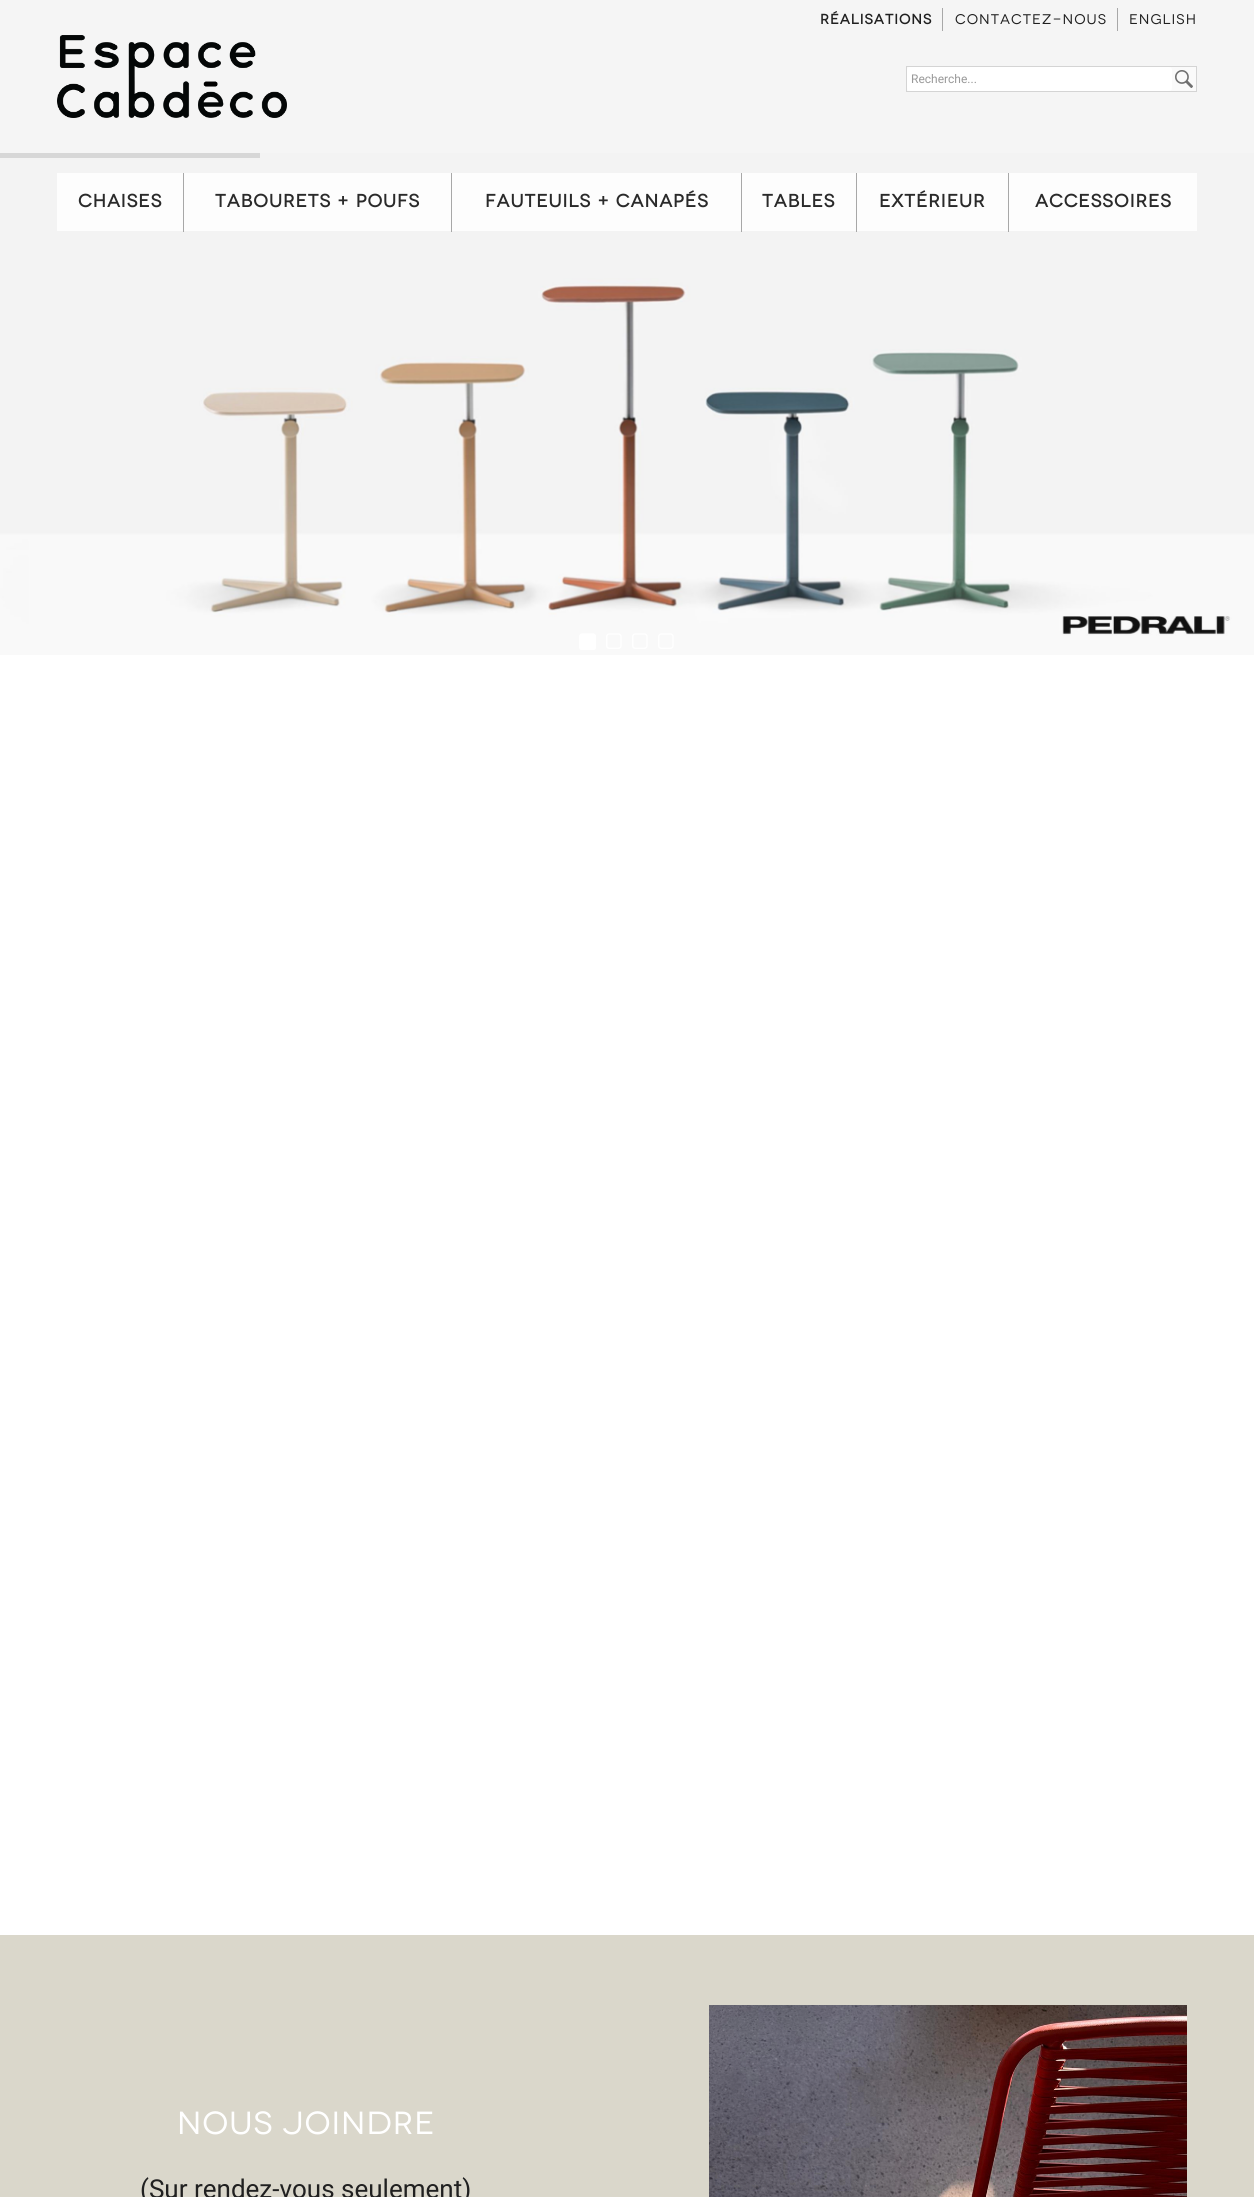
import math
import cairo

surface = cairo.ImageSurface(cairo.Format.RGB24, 1254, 2197)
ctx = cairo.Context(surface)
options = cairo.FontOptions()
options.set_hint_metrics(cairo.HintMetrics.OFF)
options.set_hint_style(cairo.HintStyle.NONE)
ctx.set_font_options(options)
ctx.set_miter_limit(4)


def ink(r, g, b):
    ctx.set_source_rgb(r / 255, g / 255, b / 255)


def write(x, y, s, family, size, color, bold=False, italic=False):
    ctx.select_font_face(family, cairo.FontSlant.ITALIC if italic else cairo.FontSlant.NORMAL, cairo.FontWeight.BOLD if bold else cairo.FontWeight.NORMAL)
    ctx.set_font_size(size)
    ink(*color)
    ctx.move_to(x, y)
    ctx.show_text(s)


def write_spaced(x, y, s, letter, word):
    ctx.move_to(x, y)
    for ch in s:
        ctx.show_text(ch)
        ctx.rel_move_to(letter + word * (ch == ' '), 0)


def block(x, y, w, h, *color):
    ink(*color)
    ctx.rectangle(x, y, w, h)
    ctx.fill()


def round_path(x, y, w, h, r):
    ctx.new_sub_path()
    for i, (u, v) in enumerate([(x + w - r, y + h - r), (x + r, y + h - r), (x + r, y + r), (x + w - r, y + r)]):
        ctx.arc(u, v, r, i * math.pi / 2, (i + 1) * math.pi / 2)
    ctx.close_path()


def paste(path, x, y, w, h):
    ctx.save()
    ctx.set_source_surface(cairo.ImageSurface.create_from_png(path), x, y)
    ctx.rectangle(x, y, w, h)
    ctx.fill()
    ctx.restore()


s1 = dict(family="Roboto", size=12, color=(153, 153, 153))
s2 = dict(family="Roboto", size=26, color=(32, 32, 32))

ink(255, 255, 255)
ctx.paint()
block(0, 0, 1254, 153, 245, 245, 245)
paste("pic1.png", 57, 35, 230, 83)
block(942, 8, 1, 23, 168, 168, 168)
ctx.select_font_face("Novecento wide", cairo.FontSlant.NORMAL, cairo.FontWeight.BOLD)
ctx.set_font_size(14)
ink(32, 32, 32)
write_spaced(820, 24, "Réalisations", 1, 0)
block(1117, 8, 1, 23, 168, 168, 168)
ctx.select_font_face("Novecento wide")
ink(32, 32, 32)
write_spaced(955, 24, "Contactez-nous", 1, 0)
write_spaced(1129, 24, "English", 1, 0)
ink(250, 250, 250)
ctx.rectangle(906.5, 66.5, 290, 25)
ctx.fill_preserve()
ink(212, 212, 212)
ctx.set_line_width(1)
ctx.stroke()
ink(255, 255, 255)
round_path(907, 67, 265, 24, 3)
ctx.fill()
write(911, 83, "Recherche...", **s1)
paste("pic2.png", 1175, 70, 18, 18)
paste("pic3.png", 0, 153, 1254, 502)
block(57, 173, 126, 58, 253, 253, 253)
block(183, 173, 1, 59, 168, 168, 168)
ctx.select_font_face("Novecento wide", cairo.FontSlant.NORMAL, cairo.FontWeight.BOLD)
ctx.set_font_size(18)
ink(42, 42, 42)
write_spaced(78, 207, "CHAISES", 1, 0)
block(184, 173, 267, 58, 253, 253, 253)
block(451, 173, 1, 59, 168, 168, 168)
ink(42, 42, 42)
write_spaced(215, 207, "TABOURETS + POUFS", 1, 0)
block(452, 173, 289, 58, 253, 253, 253)
block(741, 173, 1, 59, 168, 168, 168)
ink(42, 42, 42)
write_spaced(485, 207, "FAUTEUILS + CANAPÉS", 1, 0)
block(742, 173, 114, 58, 253, 253, 253)
block(856, 173, 1, 59, 168, 168, 168)
ink(42, 42, 42)
write_spaced(762, 207, "TABLES", 1, 0)
block(857, 173, 151, 58, 253, 253, 253)
block(1008, 173, 1, 59, 168, 168, 168)
ink(42, 42, 42)
write_spaced(879, 207, "EXTÉRIEUR", 1, 0)
block(1009, 173, 188, 58, 253, 253, 253)
ink(42, 42, 42)
write_spaced(1035, 207, "ACCESSOIRES", 1, 0)
block(0, 153, 260, 5, 215, 215, 215)
paste("pic4.png", 579, 633, 17, 17)
paste("pic5.png", 606, 633, 16, 16)
paste("pic5.png", 632, 633, 16, 16)
paste("pic5.png", 658, 633, 16, 16)
block(0, 1935, 1254, 262, 218, 215, 203)
ctx.select_font_face("Novecento wide")
ctx.set_font_size(32)
ink(255, 255, 255)
write_spaced(177, 2134, "NOUS JOINDRE", 1, 0)
write(140, 2198, "(Sur rendez-vous seulement)", **s2)
paste("pic6.png", 709, 2005, 478, 192)
surface.write_to_png("screenshot.png")
